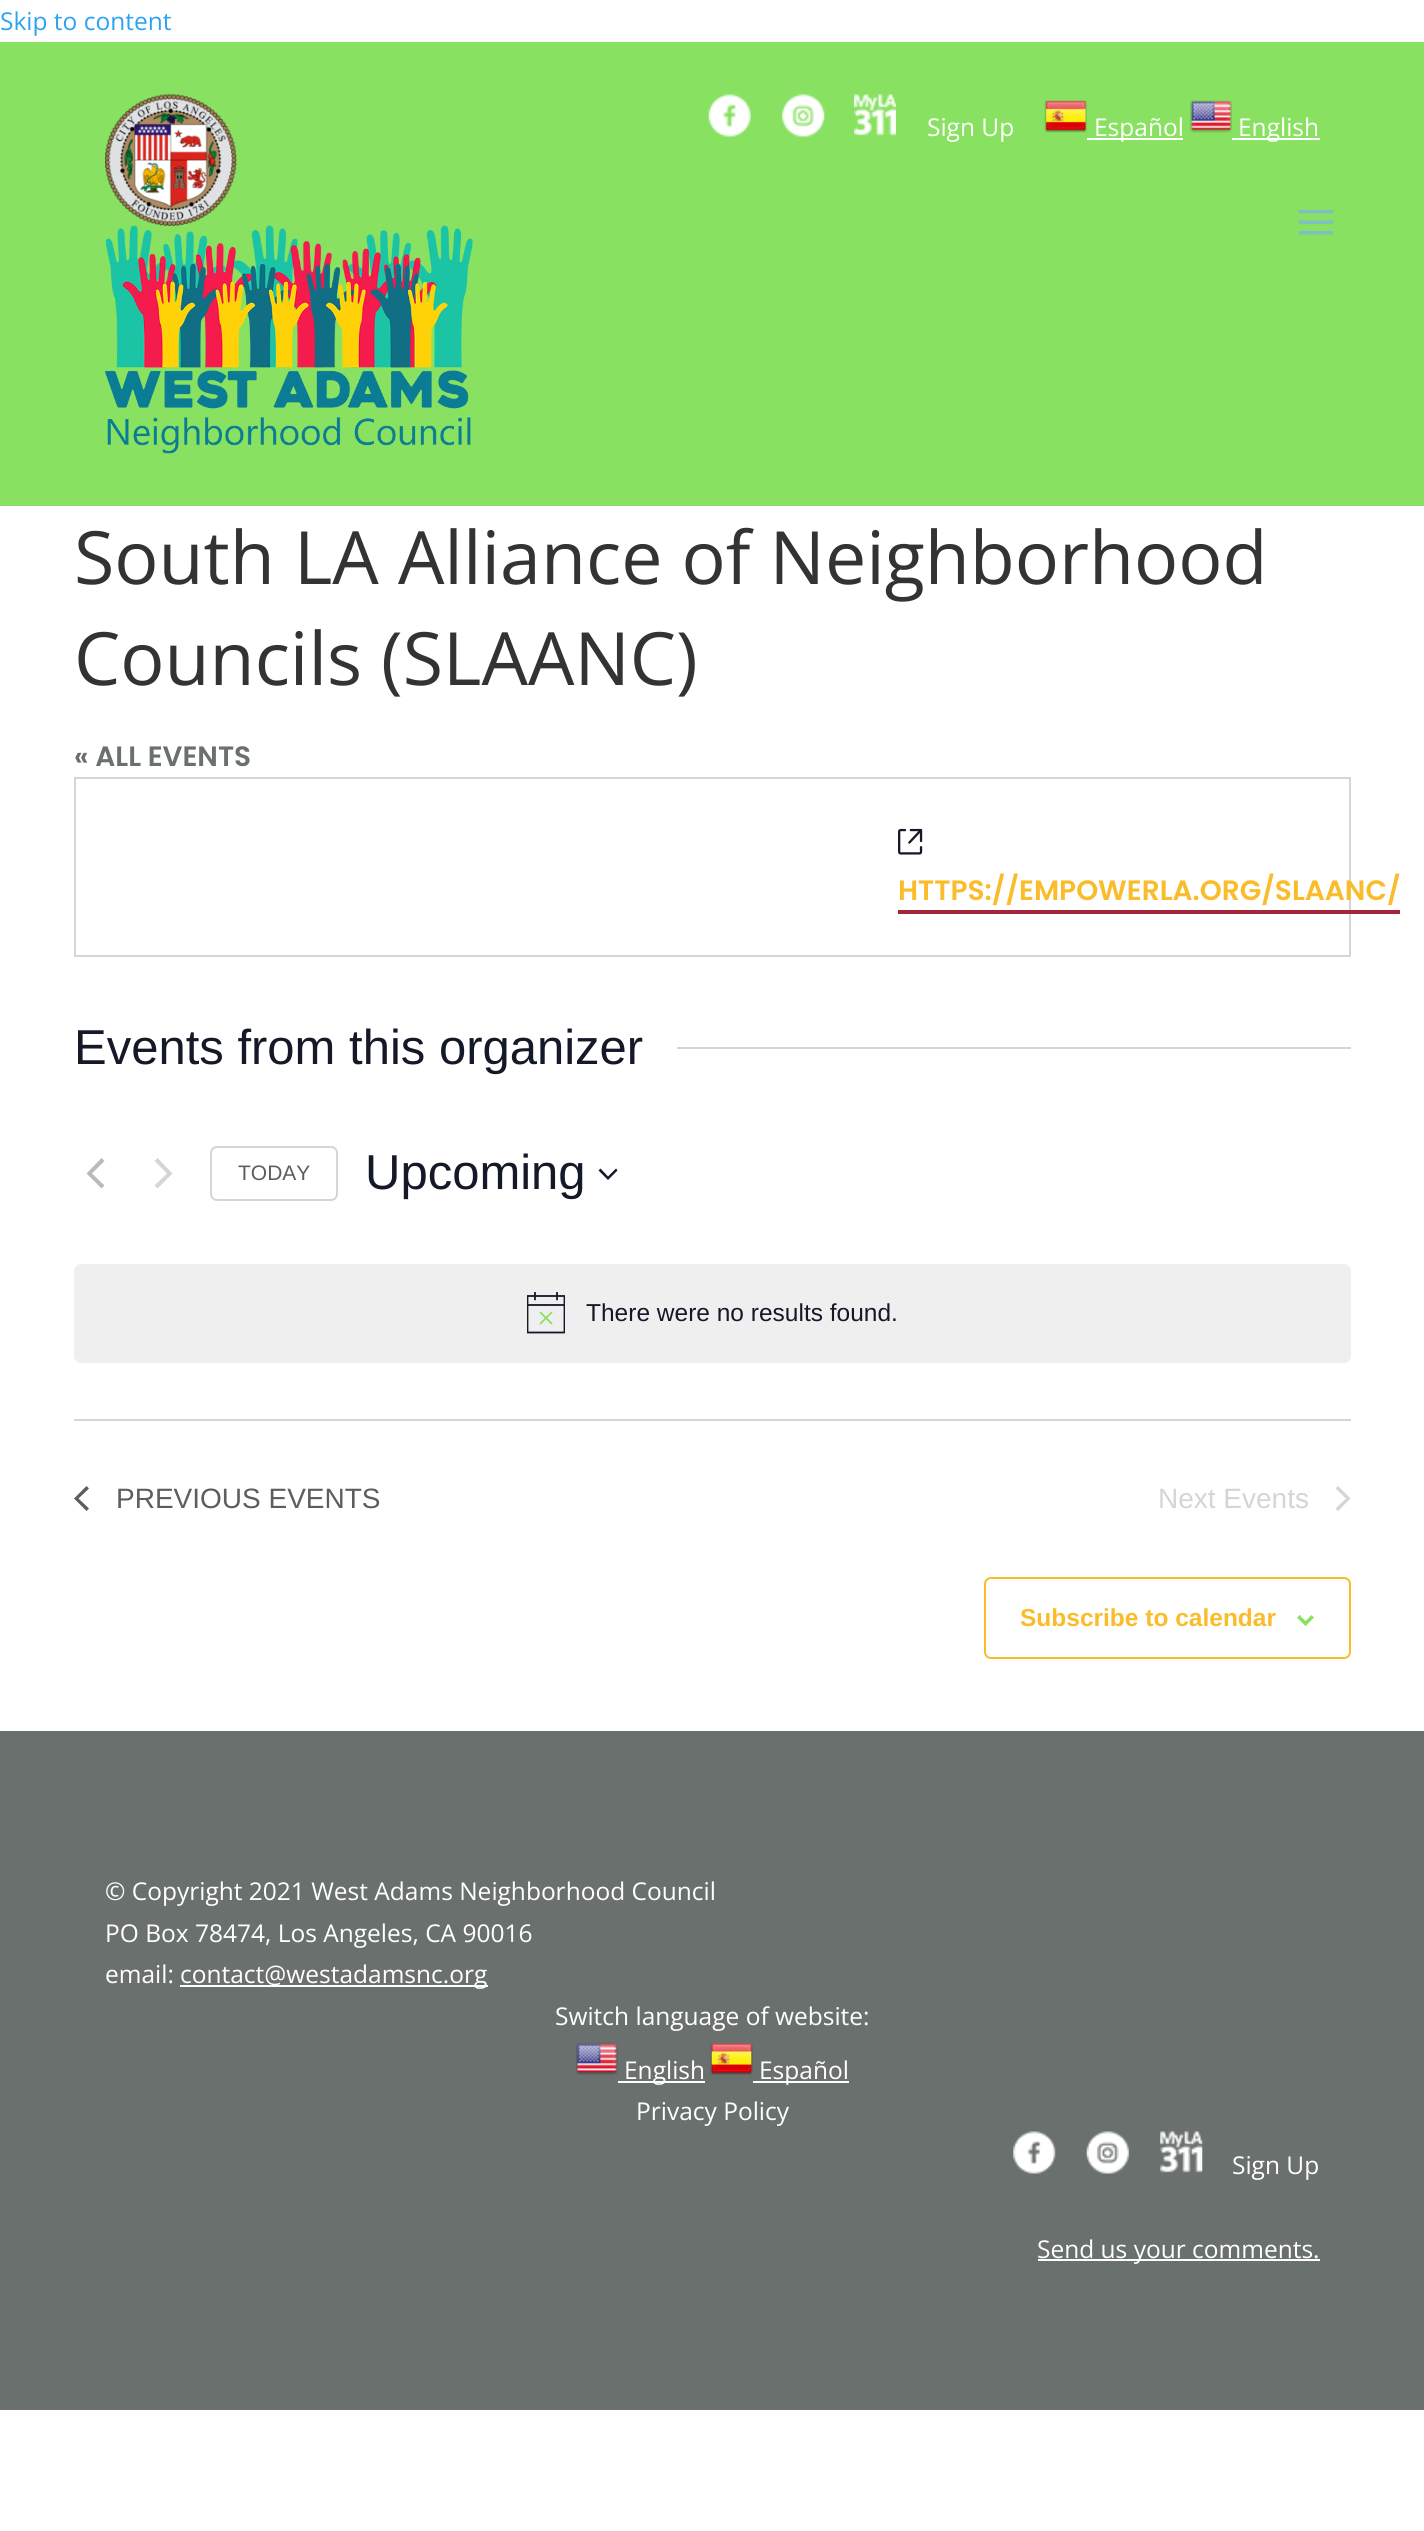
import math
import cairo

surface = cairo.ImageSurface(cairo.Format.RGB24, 1424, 2531)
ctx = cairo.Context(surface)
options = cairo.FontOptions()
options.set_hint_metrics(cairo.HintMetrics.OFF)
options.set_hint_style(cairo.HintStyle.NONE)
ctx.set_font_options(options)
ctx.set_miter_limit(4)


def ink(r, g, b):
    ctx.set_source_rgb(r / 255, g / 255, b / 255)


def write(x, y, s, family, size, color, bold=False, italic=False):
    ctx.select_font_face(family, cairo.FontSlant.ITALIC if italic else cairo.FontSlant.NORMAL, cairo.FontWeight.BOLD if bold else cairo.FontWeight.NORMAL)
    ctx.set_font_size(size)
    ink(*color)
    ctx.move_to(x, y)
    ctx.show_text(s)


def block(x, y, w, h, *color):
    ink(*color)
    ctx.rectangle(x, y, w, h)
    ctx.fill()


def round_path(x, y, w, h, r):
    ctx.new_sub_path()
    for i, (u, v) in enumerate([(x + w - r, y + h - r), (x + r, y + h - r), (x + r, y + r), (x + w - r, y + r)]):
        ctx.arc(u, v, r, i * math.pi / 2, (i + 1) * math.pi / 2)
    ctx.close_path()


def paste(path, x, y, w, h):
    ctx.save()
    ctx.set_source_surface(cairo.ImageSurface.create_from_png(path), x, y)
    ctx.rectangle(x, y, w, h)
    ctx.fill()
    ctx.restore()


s1 = dict(family="Open Sans", size=24.5, color=(46, 163, 242))
s2 = dict(family="Open Sans", size=24.5, color=(255, 255, 255))
s3 = dict(family="Open Sans", size=73.5, color=(51, 51, 51))
s4 = dict(family="Poppins SemiBold", size=28, color=(106, 112, 110))
s5 = dict(family="Poppins SemiBold", size=28, color=(250, 188, 42))
s6 = dict(family="Liberation Sans", size=49, color=(20, 24, 39))
s7 = dict(family="Liberation Sans", size=21, color=(93, 93, 93))
s8 = dict(family="Liberation Sans", size=24.5, color=(20, 24, 39))
s9 = dict(family="Liberation Sans", size=28, color=(93, 93, 93))
s10 = dict(family="Liberation Sans", size=28, color=(213, 213, 213))
s11 = dict(family="Liberation Sans", size=24.5, color=(250, 188, 42), bold=True)

ink(255, 255, 255)
ctx.paint()
write(0, 30, "Skip to content", **s1)
block(0, 42, 1424, 464, 136, 225, 97)
paste("pic1.png", 105, 94, 132, 132)
paste("pic2.png", 105, 225, 368, 229)
paste("pic3.png", 708, 94, 43, 43)
paste("pic4.png", 782, 94, 43, 43)
paste("pic5.png", 854, 94, 42, 42)
write(927, 136, "Sign Up", **s2)
paste("pic6.png", 1044, 100, 43, 33)
block(1087, 138, 96, 2, 255, 255, 255)
write(1094, 136, "Español", **s2)
paste("pic7.png", 1190, 100, 42, 33)
block(1232, 138, 88, 2, 255, 255, 255)
write(1238, 136, "English", **s2)
paste("pic8.png", 1298, 209, 36, 26)
write(74, 584, "South LA Alliance of Neighborhood", **s3)
write(74, 685, "Councils (SLAANC)", **s3)
write(74, 766, "« ALL EVENTS", **s4)
ctx.rectangle(75, 778, 1275, 178)
ink(213, 213, 213)
ctx.stroke()
paste("pic9.png", 898, 828, 25, 27)
write(898, 900, "HTTPS://EMPOWERLA.ORG/SLAANC/", **s5)
block(898, 910, 502, 4, 166, 38, 57)
write(74, 1064, "Events from this organizer", **s6)
block(677, 1047, 674, 2, 213, 213, 213)
ink(186, 186, 186)
ctx.new_path()
ctx.move_to(104.5, 1185.5)
ctx.line_to(101.5, 1188.5)
ctx.line_to(86.5, 1173.5)
ctx.line_to(101.5, 1158)
ctx.line_to(104.5, 1161)
ctx.line_to(92, 1173.5)
ctx.close_path()
ctx.fill()
ink(213, 213, 213)
ctx.new_path()
ctx.move_to(154.5, 1161)
ctx.line_to(157.5, 1158)
ctx.line_to(172.5, 1173.5)
ctx.line_to(157.5, 1188.5)
ctx.line_to(154.5, 1185.5)
ctx.line_to(167, 1173.5)
ctx.close_path()
ctx.fill()
round_path(211, 1147, 126, 53, 6)
ctx.stroke()
write(238, 1180, "TODAY", **s7)
write(365, 1189, "Upcoming", **s6)
ctx.set_fill_rule(cairo.FillRule.EVEN_ODD)
ctx.new_path()
ctx.move_to(600.5, 1168.5)
ctx.line_to(608, 1176.5)
ctx.line_to(616, 1168.5)
ctx.line_to(617.5, 1170.5)
ctx.line_to(608, 1180)
ctx.line_to(598.5, 1170.5)
ctx.close_path()
ctx.fill()
ink(239, 239, 240)
round_path(74, 1264, 1277, 99, 7)
ctx.fill()
ctx.save()
ctx.set_fill_rule(cairo.FillRule.WINDING)
ctx.rectangle(527, 1292, 38, 43)
ctx.clip()
ctx.new_path()
ctx.move_to(527.5, 1296)
ctx.line_to(564.5, 1296)
ctx.line_to(564.5, 1332.5)
ctx.line_to(527.5, 1332.5)
ctx.close_path()
ink(20, 24, 39)
ctx.set_line_width(1.8)
ctx.stroke()
ctx.restore()
ctx.new_path()
ctx.move_to(540.5, 1312.5)
ctx.line_to(551.5, 1323.5)
ctx.move_to(551.5, 1312.5)
ctx.line_to(540.5, 1323.5)
ink(136, 225, 97)
ctx.set_line_width(1.8)
ctx.set_line_cap(cairo.LineCap.ROUND)
ctx.stroke()
ctx.save()
ctx.set_fill_rule(cairo.FillRule.WINDING)
ctx.rectangle(527, 1292, 38, 43)
ctx.clip()
ctx.new_path()
ctx.move_to(535, 1292.5)
ctx.line_to(535, 1299.5)
ctx.move_to(557, 1292.5)
ctx.line_to(557, 1299.5)
ink(20, 24, 39)
ctx.stroke()
ctx.restore()
ctx.set_source_rgba(0.078, 0.094, 0.153, 0.9)
ctx.rectangle(527, 1304, 38, 2)
ctx.fill()
write(586, 1321, "There were no results found.", **s8)
block(74, 1419, 1277, 2, 213, 213, 213)
ink(93, 93, 93)
ctx.set_fill_rule(cairo.FillRule.WINDING)
ctx.new_path()
ctx.move_to(89, 1508.5)
ctx.line_to(86.5, 1511)
ctx.line_to(74, 1498.5)
ctx.line_to(86.5, 1486)
ctx.line_to(89, 1488.5)
ctx.line_to(78.5, 1498.5)
ctx.close_path()
ctx.fill()
write(116, 1508, "PREVIOUS EVENTS", **s9)
write(1158, 1508, "Next Events", **s10)
ctx.new_path()
ctx.move_to(1335.5, 1488.5)
ctx.line_to(1338, 1486)
ctx.line_to(1350.5, 1498.5)
ctx.line_to(1338, 1511)
ctx.line_to(1335.5, 1508.5)
ctx.line_to(1346, 1498.5)
ctx.close_path()
ctx.fill()
round_path(985, 1578, 365, 80, 6)
ink(250, 188, 42)
ctx.set_line_width(2)
ctx.set_line_cap(cairo.LineCap.BUTT)
ctx.stroke()
write(1020, 1626, "Subscribe to calendar", **s11)
paste("pic10.png", 1297, 1615, 17, 11)
block(0, 1731, 1424, 679, 106, 112, 110)
write(105, 1900, "© Copyright 2021 West Adams Neighborhood Council", **s2)
write(105, 1942, "PO Box 78474, Los Angeles, CA 90016", **s2)
write(105, 1983, "email:", **s2)
block(180, 1985, 308, 2, 255, 255, 255)
write(180, 1983, "contact@westadamsnc.org", **s2)
write(555, 2025, "Switch language of website:", **s2)
paste("pic11.png", 576, 2042, 42, 33)
block(618, 2081, 87, 2, 255, 255, 255)
write(624, 2079, "English", **s2)
paste("pic12.png", 710, 2043, 43, 32)
block(753, 2081, 96, 2, 255, 255, 255)
write(759, 2079, "Español", **s2)
write(636, 2120, "Privacy Policy", **s2)
paste("pic13.png", 1013, 2131, 43, 43)
paste("pic14.png", 1086, 2131, 43, 43)
paste("pic15.png", 1160, 2131, 43, 42)
write(1232, 2174, "Sign Up", **s2)
block(1038, 2259, 282, 2, 255, 255, 255)
write(1037, 2258, "Send us your comments.", **s2)
surface.write_to_png("screenshot.png")
